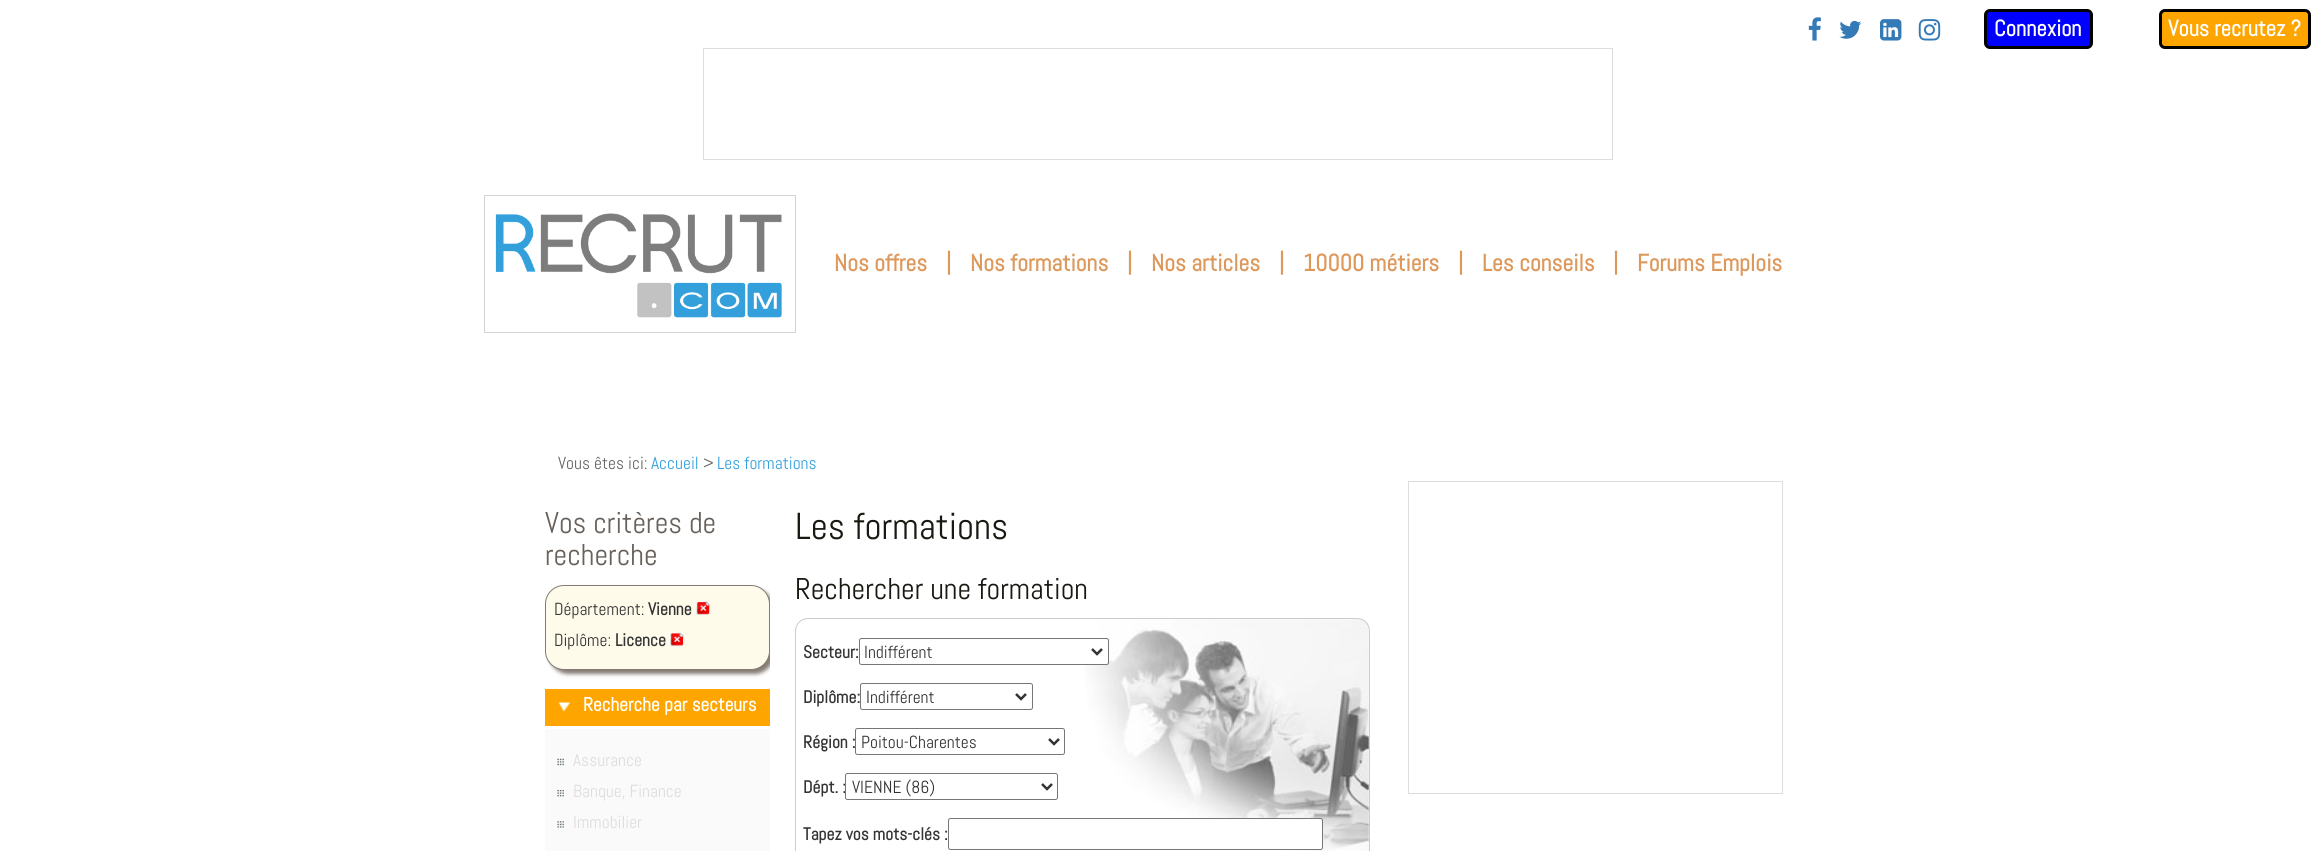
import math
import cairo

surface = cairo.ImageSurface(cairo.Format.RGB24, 2315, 851)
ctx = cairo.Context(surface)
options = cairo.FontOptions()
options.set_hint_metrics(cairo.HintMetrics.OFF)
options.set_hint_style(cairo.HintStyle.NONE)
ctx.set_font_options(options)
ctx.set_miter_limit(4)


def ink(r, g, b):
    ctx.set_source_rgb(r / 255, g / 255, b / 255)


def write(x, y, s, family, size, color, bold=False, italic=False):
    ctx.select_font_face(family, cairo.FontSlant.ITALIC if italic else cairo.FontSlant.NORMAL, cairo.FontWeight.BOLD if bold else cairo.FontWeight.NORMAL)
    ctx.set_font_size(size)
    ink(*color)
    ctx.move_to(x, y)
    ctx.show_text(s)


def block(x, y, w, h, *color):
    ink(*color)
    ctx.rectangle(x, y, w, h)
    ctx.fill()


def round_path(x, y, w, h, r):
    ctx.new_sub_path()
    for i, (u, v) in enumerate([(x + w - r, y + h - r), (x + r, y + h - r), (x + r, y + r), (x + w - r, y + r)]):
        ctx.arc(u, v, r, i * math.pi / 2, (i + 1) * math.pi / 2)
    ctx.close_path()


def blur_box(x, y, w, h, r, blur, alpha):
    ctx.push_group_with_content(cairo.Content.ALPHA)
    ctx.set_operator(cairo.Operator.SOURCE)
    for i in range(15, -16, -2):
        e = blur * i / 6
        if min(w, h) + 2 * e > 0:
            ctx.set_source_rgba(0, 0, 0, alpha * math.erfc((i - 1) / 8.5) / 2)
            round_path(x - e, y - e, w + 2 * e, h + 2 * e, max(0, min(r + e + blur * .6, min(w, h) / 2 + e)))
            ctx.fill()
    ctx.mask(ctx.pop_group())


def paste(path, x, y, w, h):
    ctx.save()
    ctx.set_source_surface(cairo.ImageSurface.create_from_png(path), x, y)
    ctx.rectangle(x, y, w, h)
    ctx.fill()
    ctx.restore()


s1 = dict(family="Abel", size=22.5, color=(255, 255, 255), bold=True)
s2 = dict(family="Abel", size=23.75, color=(221, 152, 92), bold=True)
s3 = dict(family="Abel", size=17.5, color=(102, 102, 102))
s4 = dict(family="Abel", size=17.5, color=(51, 160, 220))
s5 = dict(family="Abel", size=30, color=(104, 97, 91))
s6 = dict(family="Abel", size=17.5, color=(51, 51, 51))
s7 = dict(family="Abel", size=17.5, color=(51, 51, 51), bold=True)
s8 = dict(family="Abel", size=19.25, color=(255, 255, 255), bold=True)
s9 = dict(family="Abel", size=17.5, color=(221, 221, 221))
s10 = dict(family="Abel", size=37.5, color=(24, 26, 18))
s11 = dict(family="Abel", size=30, color=(24, 26, 18))

ink(255, 255, 255)
ctx.paint()
paste("pic1.png", 1808, 17, 13, 24)
paste("pic2.png", 1839, 20, 23, 19)
paste("pic3.png", 1880, 19, 22, 22)
paste("pic4.png", 1918, 19, 23, 22)
ink(0, 0, 255)
round_path(1985.5, 10.5, 106, 37, 4.5)
ctx.fill_preserve()
ink(0, 0, 0)
ctx.set_line_width(3)
ctx.stroke()
write(1994, 36, "Connexion", **s1)
ink(255, 165, 0)
round_path(2160.5, 10.5, 149, 37, 4.5)
ctx.fill_preserve()
ink(0, 0, 0)
ctx.stroke()
write(2168, 36, "Vous recrutez ?", **s1)
ctx.rectangle(703.5, 48.5, 909, 111)
ink(221, 221, 221)
ctx.set_line_width(1)
ctx.stroke()
ctx.rectangle(484.5, 195.5, 311, 137)
ink(211, 211, 211)
ctx.stroke()
paste("pic5.png", 495, 213, 287, 105)
write(834, 271, "Nos offres", **s2)
write(946, 270, "|", **s2)
write(970, 271, "Nos formations", **s2)
write(1127, 270, "|", **s2)
write(1151, 271, "Nos articles", **s2)
write(1279, 270, "|", **s2)
write(1303, 271, "10000 métiers", **s2)
write(1458, 270, "|", **s2)
write(1482, 271, "Les conseils", **s2)
write(1613, 270, "|", **s2)
write(1637, 271, "Forums Emplois", **s2)
write(558, 469, "Vous êtes ici:", **s3)
write(651, 469, "Accueil", **s4)
write(703, 469, ">", **s3)
write(717, 469, "Les formations", **s4)
write(545, 533, "Vos critères de", **s5)
write(545, 565, "recherche", **s5)
ink(131, 123, 115)
blur_box(549, 589, 225, 85, 19, 2, 1)
ink(255, 251, 235)
round_path(545.5, 585.5, 224, 84, 18.5)
ctx.fill_preserve()
ink(131, 123, 115)
ctx.stroke()
write(554, 615, "Département:", **s6)
write(648, 615, "Vienne", **s7)
paste("pic6.png", 696, 601, 14, 14)
write(554, 646, "Diplôme:", **s6)
write(615, 646, "Licence", **s7)
paste("pic7.png", 670, 632, 14, 15)
block(545, 689, 225, 37, 255, 165, 0)
paste("pic8.png", 558, 702, 13, 10)
write(583, 711, "Recherche par secteurs", **s8)
block(545, 729, 225, 122, 250, 250, 250)
paste("pic9.png", 557, 758, 7, 8)
write(573, 766, "Assurance", **s9)
paste("pic10.png", 557, 790, 7, 7)
write(573, 797, "Banque, Finance", **s9)
paste("pic11.png", 557, 821, 7, 8)
write(573, 828, "Immobilier", **s9)
block(770, 591, 8, 81, 255, 255, 255)
write(795, 539, "Les formations", **s10)
write(795, 599, "Rechercher une formation", **s11)
paste("pic12.png", 1085, 619, 284, 232)
round_path(795.5, 618.5, 574, 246, 12.5)
ink(204, 204, 204)
ctx.stroke()
write(803, 658, "Secteur:", **s7)
ink(255, 255, 255)
round_path(859.5, 638.5, 249, 26, 2)
ctx.fill_preserve()
ink(118, 118, 118)
ctx.stroke()
ctx.new_path()
ctx.move_to(1092, 649)
ctx.line_to(1097, 654)
ctx.line_to(1102, 649)
ink(51, 51, 51)
ctx.set_line_width(2.5)
ctx.stroke()
write(864, 658, "Indifférent", **s6)
write(803, 703, "Diplôme:", **s7)
round_path(860.5, 683.5, 172, 26, 2)
ink(118, 118, 118)
ctx.set_line_width(1)
ctx.stroke()
ctx.new_path()
ctx.move_to(1016, 694)
ctx.line_to(1021, 699)
ctx.line_to(1026, 694)
ink(51, 51, 51)
ctx.set_line_width(2.5)
ctx.stroke()
write(866, 703, "Indifférent", **s6)
write(803, 748, "Région :", **s7)
round_path(855.5, 728.5, 209, 26, 2)
ink(118, 118, 118)
ctx.set_line_width(1)
ctx.stroke()
ctx.new_path()
ctx.move_to(1049, 739)
ctx.line_to(1054, 744)
ctx.line_to(1059, 739)
ink(51, 51, 51)
ctx.set_line_width(2.5)
ctx.stroke()
write(861, 748, "Poitou-Charentes", **s6)
write(803, 793, "Dépt. :", **s7)
round_path(845.5, 773.5, 212, 26, 2)
ink(118, 118, 118)
ctx.set_line_width(1)
ctx.stroke()
ctx.new_path()
ctx.move_to(1042, 784)
ctx.line_to(1047, 789)
ctx.line_to(1052, 784)
ink(51, 51, 51)
ctx.set_line_width(2.5)
ctx.stroke()
write(852, 793, "VIENNE (86)", **s6)
write(803, 840, "Tapez vos mots-clés :", **s7)
ink(255, 255, 255)
round_path(948.5, 818.5, 374, 31, 2)
ctx.fill_preserve()
ink(118, 118, 118)
ctx.set_line_width(1)
ctx.stroke()
ctx.rectangle(1408.5, 481.5, 374, 312)
ink(221, 221, 221)
ctx.stroke()
surface.write_to_png("screenshot.png")
